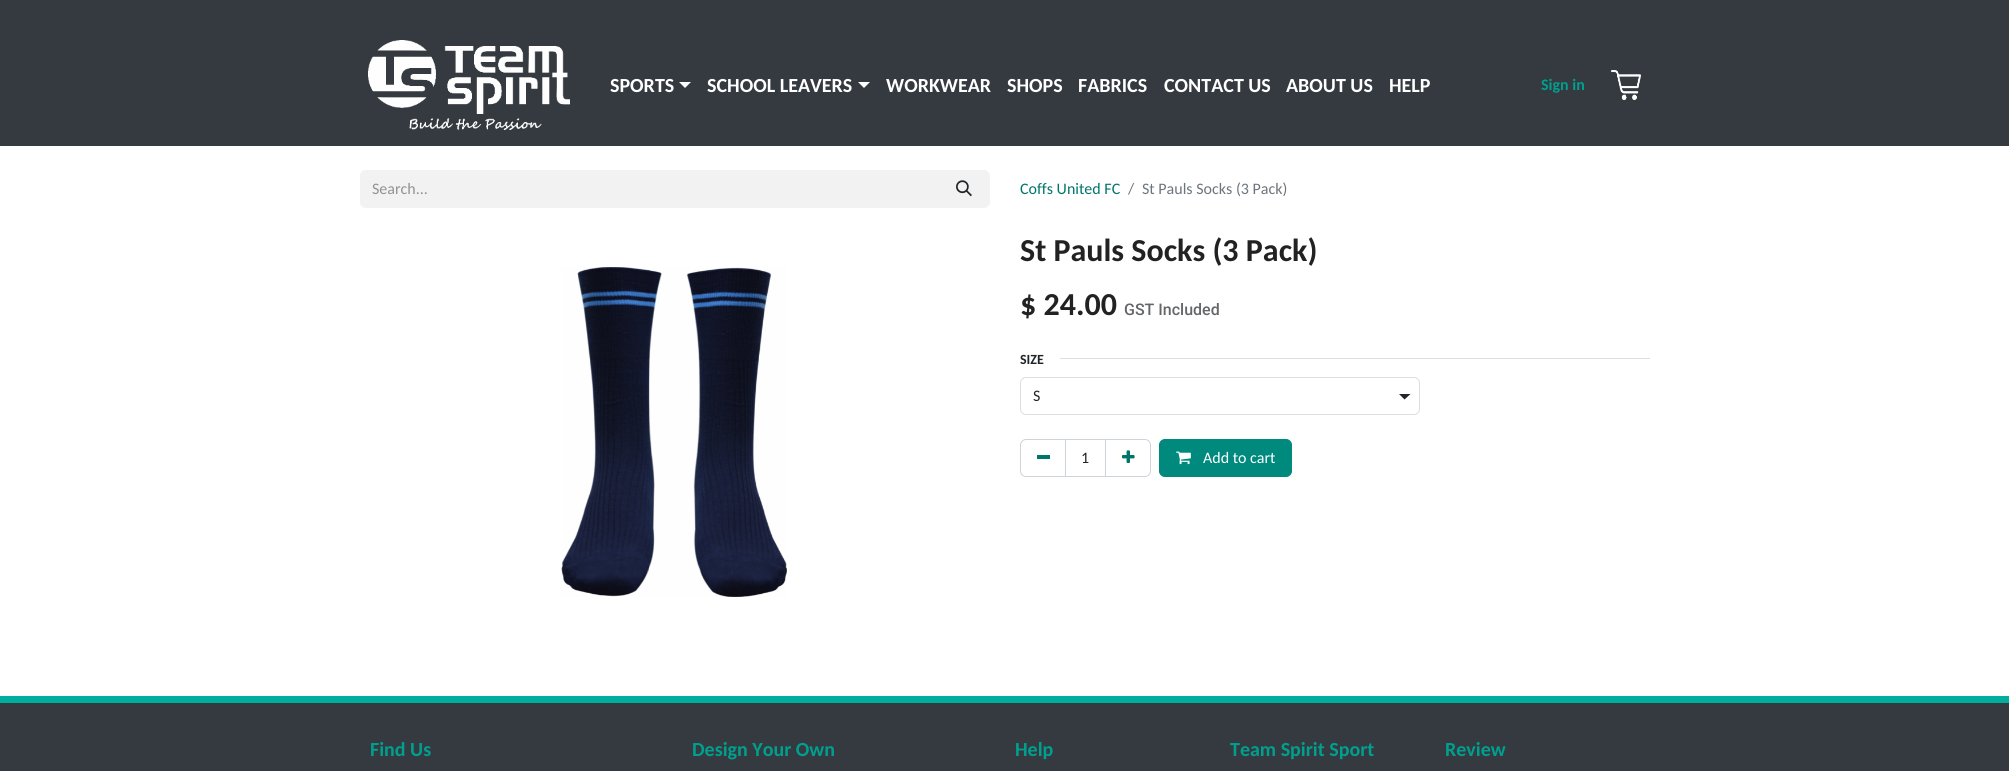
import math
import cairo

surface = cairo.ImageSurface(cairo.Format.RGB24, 2009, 771)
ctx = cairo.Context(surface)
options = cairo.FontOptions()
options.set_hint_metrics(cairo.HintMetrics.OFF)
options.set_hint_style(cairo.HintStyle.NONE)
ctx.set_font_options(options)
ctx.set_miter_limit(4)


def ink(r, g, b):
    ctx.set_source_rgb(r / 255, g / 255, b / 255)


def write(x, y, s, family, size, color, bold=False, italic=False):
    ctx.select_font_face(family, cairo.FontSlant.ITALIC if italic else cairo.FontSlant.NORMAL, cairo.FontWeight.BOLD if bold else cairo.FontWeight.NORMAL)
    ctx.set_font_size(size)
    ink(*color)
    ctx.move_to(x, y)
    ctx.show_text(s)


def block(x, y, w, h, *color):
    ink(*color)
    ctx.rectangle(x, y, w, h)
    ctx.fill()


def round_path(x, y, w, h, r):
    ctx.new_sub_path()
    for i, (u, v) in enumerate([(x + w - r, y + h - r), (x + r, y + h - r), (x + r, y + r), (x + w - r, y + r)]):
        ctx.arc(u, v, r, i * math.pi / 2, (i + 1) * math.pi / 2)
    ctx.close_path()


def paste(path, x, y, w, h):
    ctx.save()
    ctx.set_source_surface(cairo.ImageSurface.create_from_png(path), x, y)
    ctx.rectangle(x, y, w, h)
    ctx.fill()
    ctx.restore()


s1 = dict(family="Carlito", size=20, color=(255, 255, 255), bold=True)
s2 = dict(family="Carlito", size=16, color=(0, 159, 142), bold=True)
s3 = dict(family="Carlito", size=16, color=(144, 146, 148))
s4 = dict(family="Carlito", size=16, color=(0, 118, 107))
s5 = dict(family="Carlito", size=16, color=(108, 117, 125))
s6 = dict(family="Carlito", size=32, color=(34, 34, 34), bold=True)
s7 = dict(family="Roboto Medium", size=16, color=(100, 102, 105))
s8 = dict(family="Carlito", size=14, color=(33, 37, 41), bold=True)
s9 = dict(family="Carlito", size=16, color=(33, 37, 41))
s10 = dict(family="Carlito", size=16, color=(255, 255, 255))
s11 = dict(family="Carlito", size=20, color=(0, 159, 142), bold=True)

ink(255, 255, 255)
ctx.paint()
block(0, 0, 2009, 146, 52, 58, 64)
paste("pic1.png", 368, 40, 202, 90)
write(610, 92, "SPORTS", **s1)
ctx.new_path()
ctx.move_to(679, 82)
ctx.line_to(691, 82)
ctx.line_to(685, 88)
ctx.close_path()
ctx.fill()
write(707, 92, "SCHOOL LEAVERS", **s1)
ctx.new_path()
ctx.move_to(858, 82)
ctx.line_to(870, 82)
ctx.line_to(864, 88)
ctx.close_path()
ctx.fill()
write(886, 92, "WORKWEAR", **s1)
write(1007, 92, "SHOPS", **s1)
write(1078, 92, "FABRICS", **s1)
write(1164, 92, "CONTACT US", **s1)
write(1286, 92, "ABOUT US", **s1)
write(1389, 92, "HELP", **s1)
write(1541, 90, "Sign in", **s2)
paste("pic2.png", 1611, 70, 30, 30)
ink(243, 242, 242)
ctx.new_path()
ctx.move_to(366, 170)
ctx.line_to(940, 170)
ctx.line_to(940, 208)
ctx.line_to(366, 208)
ctx.curve_to(362.5, 208, 360, 205.5, 360, 202)
ctx.line_to(360, 176)
ctx.curve_to(360, 172.5, 362.5, 170, 366, 170)
ctx.close_path()
ctx.fill()
write(372, 194, "Search...", **s3)
ink(243, 242, 242)
ctx.new_path()
ctx.move_to(939.5, 170.5)
ctx.line_to(984, 170.5)
ctx.curve_to(987, 170.5, 989.5, 173, 989.5, 176)
ctx.line_to(989.5, 202)
ctx.curve_to(989.5, 205, 987, 207.5, 984, 207.5)
ctx.line_to(939.5, 207.5)
ctx.close_path()
ctx.fill_preserve()
ctx.set_line_width(1)
ctx.stroke()
paste("pic3.png", 956, 180, 16, 17)
write(1020, 194, "Coffs United FC", **s4)
write(1128, 194, "/", **s5)
write(1142, 194, "St Pauls Socks (3 Pack)", **s5)
paste("pic4.png", 561, 267, 226, 330)
write(1020, 261, "St Pauls Socks (3 Pack)", **s6)
write(1020, 315, "$ 24.00", **s6)
write(1124, 315, "GST Included", **s7)
write(1020, 364, "SIZE", **s8)
block(1060, 358, 590, 1, 222, 222, 223)
ink(33, 37, 41)
ctx.new_path()
ctx.move_to(1399, 394)
ctx.line_to(1410.5, 394)
ctx.line_to(1404.5, 399.5)
ctx.close_path()
ctx.fill()
round_path(1020.5, 377.5, 399, 37, 5.5)
ink(222, 222, 223)
ctx.stroke()
write(1033, 401, "S", **s9)
ctx.rectangle(1065.5, 439.5, 40, 37)
ink(206, 212, 218)
ctx.stroke()
ctx.new_path()
ctx.move_to(1026, 439.5)
ctx.line_to(1065.5, 439.5)
ctx.line_to(1065.5, 476.5)
ctx.line_to(1026, 476.5)
ctx.curve_to(1023, 476.5, 1020.5, 474, 1020.5, 471)
ctx.line_to(1020.5, 445)
ctx.curve_to(1020.5, 442, 1023, 439.5, 1026, 439.5)
ctx.close_path()
ctx.stroke()
block(1037, 455, 13, 4, 0, 118, 107)
write(1081, 463, "1", **s9)
ctx.new_path()
ctx.move_to(1105.5, 439.5)
ctx.line_to(1145, 439.5)
ctx.curve_to(1148, 439.5, 1150.5, 442, 1150.5, 445)
ctx.line_to(1150.5, 471)
ctx.curve_to(1150.5, 474, 1148, 476.5, 1145, 476.5)
ctx.line_to(1105.5, 476.5)
ctx.close_path()
ink(206, 212, 218)
ctx.stroke()
paste("pic5.png", 1122, 450, 13, 13)
ink(0, 138, 126)
round_path(1159.5, 439.5, 132, 37, 5.5)
ctx.fill_preserve()
ctx.stroke()
paste("pic6.png", 1176, 451, 15, 14)
write(1203, 463, "Add to cart", **s10)
block(0, 703, 2009, 68, 52, 58, 64)
block(0, 696, 2009, 7, 0, 174, 158)
write(370, 756, "Find Us", **s11)
write(692, 756, "Design Your Own", **s11)
write(1015, 756, "Help", **s11)
write(1230, 756, "Team Spirit Sport", **s11)
write(1445, 756, "Review", **s11)
surface.write_to_png("screenshot.png")
